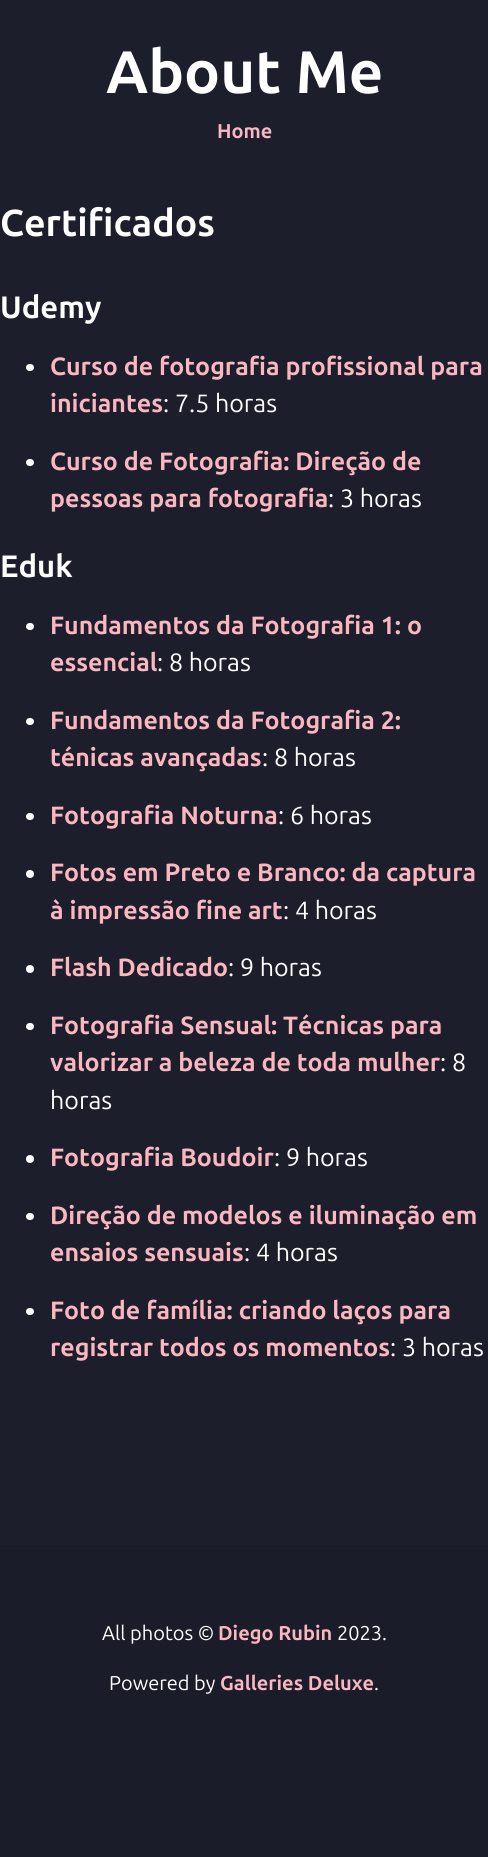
import math
import cairo

surface = cairo.ImageSurface(cairo.Format.RGB24, 488, 1857)
ctx = cairo.Context(surface)
options = cairo.FontOptions()
options.set_hint_metrics(cairo.HintMetrics.OFF)
options.set_hint_style(cairo.HintStyle.NONE)
ctx.set_font_options(options)
ctx.set_miter_limit(4)


def ink(r, g, b):
    ctx.set_source_rgb(r / 255, g / 255, b / 255)


def write(x, y, s, family, size, color, bold=False, italic=False):
    ctx.select_font_face(family, cairo.FontSlant.ITALIC if italic else cairo.FontSlant.NORMAL, cairo.FontWeight.BOLD if bold else cairo.FontWeight.NORMAL)
    ctx.set_font_size(size)
    ink(*color)
    ctx.move_to(x, y)
    ctx.show_text(s)


def block(x, y, w, h, *color):
    ink(*color)
    ctx.rectangle(x, y, w, h)
    ctx.fill()


def round_path(x, y, w, h, r):
    ctx.new_sub_path()
    for i, (u, v) in enumerate([(x + w - r, y + h - r), (x + r, y + h - r), (x + r, y + r), (x + w - r, y + r)]):
        ctx.arc(u, v, r, i * math.pi / 2, (i + 1) * math.pi / 2)
    ctx.close_path()


s1 = dict(family="Ubuntu", size=60, color=(255, 255, 255), bold=True)
s2 = dict(family="Ubuntu", size=20, color=(251, 183, 192), bold=True)
s3 = dict(family="Ubuntu", size=37.5, color=(255, 255, 255), bold=True)
s4 = dict(family="Ubuntu", size=31, color=(255, 255, 255), bold=True)
s5 = dict(family="Ubuntu", size=25, color=(251, 183, 192), bold=True)
s6 = dict(family="Ubuntu", size=25, color=(255, 255, 255))
s7 = dict(family="Ubuntu", size=20, color=(255, 255, 255))

ink(29, 30, 44)
ctx.paint()
write(106, 93, "About Me", **s1)
write(217, 138, "Home", **s2)
write(0, 236, "Certificados", **s3)
write(0, 318, "Udemy", **s4)
round_path(26, 364, 8, 7, 3.5)
ctx.fill()
write(50, 375, "Curso de fotografia profissional para", **s5)
write(50, 412, "iniciantes", **s5)
write(163, 412, ": 7.5 horas", **s6)
round_path(26, 459, 8, 7, 3.5)
ctx.fill()
write(50, 470, "Curso de Fotografia: Direção de", **s5)
write(50, 507, "pessoas para fotografia", **s5)
write(328, 507, ": 3 horas", **s6)
write(0, 577, "Eduk", **s4)
round_path(26, 623, 8, 7, 3.5)
ctx.fill()
write(50, 634, "Fundamentos da Fotografia 1: o", **s5)
write(50, 671, "essencial", **s5)
write(157, 671, ": 8 horas", **s6)
round_path(26, 718, 8, 7, 3.5)
ctx.fill()
write(50, 729, "Fundamentos da Fotografia 2:", **s5)
write(50, 766, "ténicas avançadas", **s5)
write(262, 766, ": 8 horas", **s6)
round_path(26, 813, 8, 7, 3.5)
ctx.fill()
write(50, 824, "Fotografia Noturna", **s5)
write(278, 824, ": 6 horas", **s6)
ctx.new_path()
ctx.arc(30, 874, 4, 0, 2 * math.pi)
ctx.fill()
write(50, 881, "Fotos em Preto e Branco: da captura", **s5)
write(50, 919, "à impressão fine art", **s5)
write(283, 919, ": 4 horas", **s6)
ctx.new_path()
ctx.arc(30, 969, 4, 0, 2 * math.pi)
ctx.fill()
write(50, 976, "Flash Dedicado", **s5)
write(228, 976, ": 9 horas", **s6)
round_path(26, 1023, 8, 7, 3.5)
ctx.fill()
write(50, 1034, "Fotografia Sensual: Técnicas para", **s5)
write(50, 1071, "valorizar a beleza de toda mulher", **s5)
write(440, 1071, ": 8", **s6)
write(50, 1109, "horas", **s6)
ctx.new_path()
ctx.arc(30, 1159, 4, 0, 2 * math.pi)
ctx.fill()
write(50, 1166, "Fotografia Boudoir", **s5)
write(274, 1166, ": 9 horas", **s6)
round_path(26, 1213, 8, 7, 3.5)
ctx.fill()
write(50, 1224, "Direção de modelos e iluminação em", **s5)
write(50, 1261, "ensaios sensuais", **s5)
write(244, 1261, ": 4 horas", **s6)
round_path(26, 1308, 8, 7, 3.5)
ctx.fill()
write(50, 1319, "Foto de família: criando laços para", **s5)
write(50, 1356, "registrar todos os momentos", **s5)
write(390, 1356, ": 3 horas", **s6)
ink(27, 28, 41)
ctx.set_fill_rule(cairo.FillRule.EVEN_ODD)
ctx.new_path()
ctx.move_to(-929, 1546)
ctx.line_to(-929, 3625)
ctx.line_to(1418, 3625)
ctx.line_to(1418, 1546)
ctx.close_path()
ctx.move_to(0, 1546)
ctx.line_to(0, 1768)
ctx.line_to(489, 1768)
ctx.line_to(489, 1546)
ctx.close_path()
ctx.fill()
block(0, 1547, 488, 221, 27, 28, 41)
block(0, 1546, 488, 1, 23, 24, 35)
write(102, 1640, "All photos ©", **s7)
write(218, 1640, "Diego Rubin", **s2)
write(337, 1640, "2023.", **s7)
write(109, 1690, "Powered by", **s7)
write(220, 1690, "Galleries Deluxe", **s2)
write(374, 1690, ".", **s7)
surface.write_to_png("screenshot.png")
